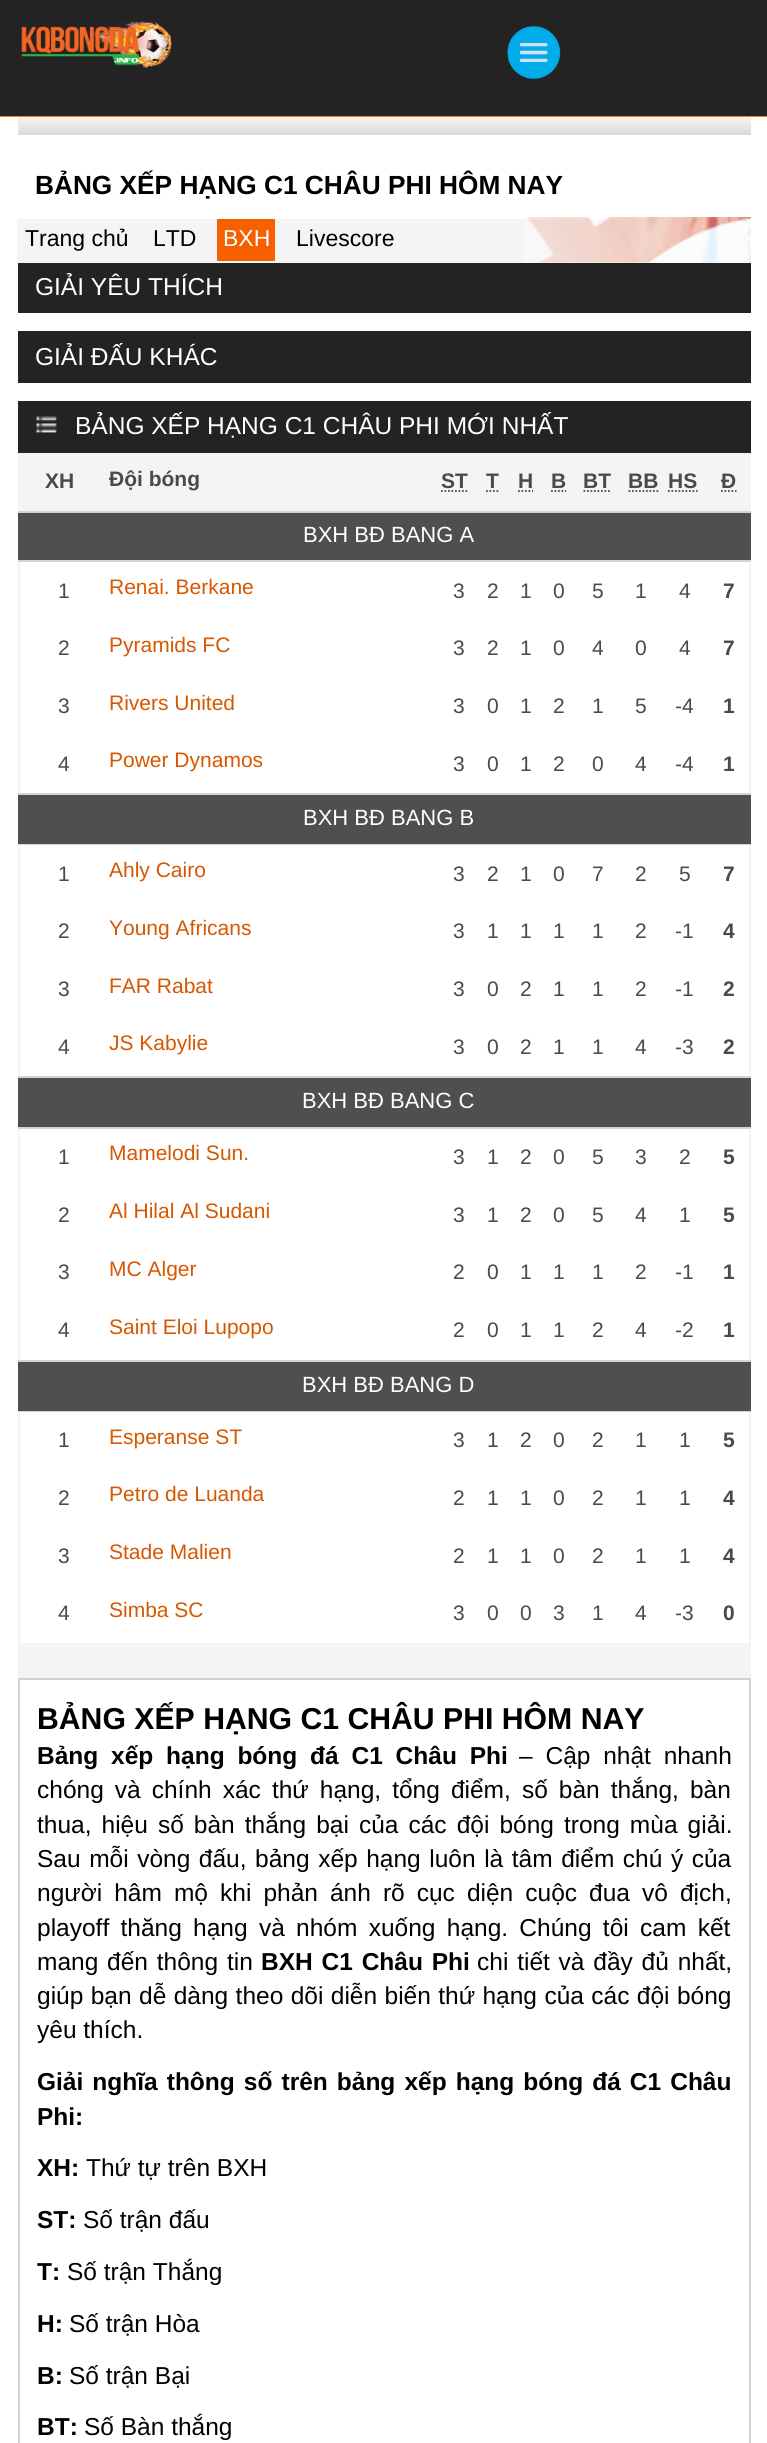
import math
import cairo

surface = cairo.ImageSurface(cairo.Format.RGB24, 767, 2443)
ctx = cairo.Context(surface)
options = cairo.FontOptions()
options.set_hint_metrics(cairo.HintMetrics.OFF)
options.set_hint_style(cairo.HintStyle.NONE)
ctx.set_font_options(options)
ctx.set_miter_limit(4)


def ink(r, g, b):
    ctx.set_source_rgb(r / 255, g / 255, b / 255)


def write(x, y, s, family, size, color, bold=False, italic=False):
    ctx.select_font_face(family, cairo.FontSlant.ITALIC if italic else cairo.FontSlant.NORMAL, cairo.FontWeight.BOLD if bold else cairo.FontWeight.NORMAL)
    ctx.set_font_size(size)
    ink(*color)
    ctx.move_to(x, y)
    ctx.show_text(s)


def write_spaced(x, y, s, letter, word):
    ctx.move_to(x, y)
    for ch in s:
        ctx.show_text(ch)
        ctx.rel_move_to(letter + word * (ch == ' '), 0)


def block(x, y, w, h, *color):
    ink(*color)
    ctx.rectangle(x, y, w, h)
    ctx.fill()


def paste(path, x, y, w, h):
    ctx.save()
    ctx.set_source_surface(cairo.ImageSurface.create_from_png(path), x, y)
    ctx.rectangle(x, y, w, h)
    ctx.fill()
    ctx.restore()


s1 = dict(family="Liberation Sans", size=26.25, color=(0, 0, 0), bold=True)
s2 = dict(family="Liberation Sans", size=23, color=(0, 0, 0))
s3 = dict(family="Liberation Sans", size=23, color=(255, 255, 255))
s4 = dict(family="Liberation Sans", size=24.5, color=(255, 255, 255))
s5 = dict(family="Liberation Sans", size=21, color=(74, 74, 74), bold=True)
s6 = dict(family="Liberation Sans", size=22, color=(255, 255, 255))
s7 = dict(family="Liberation Sans", size=21, color=(74, 74, 74))
s8 = dict(family="Liberation Sans", size=21, color=(215, 87, 0))
s9 = dict(family="Liberation Sans", size=30.2, color=(0, 0, 0), bold=True)
s10 = dict(family="Liberation Sans", size=24.5, color=(0, 0, 0))
s11 = dict(family="Liberation Sans", size=24.5, color=(0, 0, 0), bold=True)

ink(35, 35, 35)
ctx.paint()
block(0, 116, 767, 1, 255, 125, 3)
paste("pic1.png", 21, 20, 151, 49)
paste("pic2.png", 507, 26, 54, 54)
block(0, 117, 767, 2326, 255, 255, 255)
gradient = cairo.LinearGradient(384, 117, 384, 135)
gradient.add_color_stop_rgba(0, 0.961, 0.961, 0.961, 1)
gradient.add_color_stop_rgba(1, 0.851, 0.851, 0.851, 1)
ctx.set_source(gradient)
ctx.rectangle(18, 117, 733, 18)
ctx.fill()
write(35, 194, "BẢNG XẾP HẠNG C1 CHÂU PHI HÔM NAY", **s1)
block(17, 219, 734, 44, 244, 244, 244)
paste("pic3.png", 524, 217, 227, 46)
write(25, 246, "Trang chủ", **s2)
write(153, 246, "LTD", **s2)
block(217, 219, 58, 42, 248, 95, 0)
write(223, 246, "BXH", **s3)
write(296, 246, "Livescore", **s2)
block(18, 263, 733, 50, 35, 35, 35)
write(35, 295, "GIẢI YÊU THÍCH", **s4)
block(18, 331, 733, 52, 35, 35, 35)
write(35, 365, "GIẢI ĐẤU KHÁC", **s4)
block(18, 401, 733, 52, 35, 35, 35)
paste("pic4.png", 35, 416, 22, 17)
write(75, 434, "BẢNG XẾP HẠNG C1 CHÂU PHI MỚI NHẤT", **s4)
block(18, 453, 733, 1225, 244, 244, 244)
write(45, 488, "XH", **s5)
write(109, 486, "Đội bóng", **s5)
write(441, 488, "ST", **s5)
ctx.new_path()
ctx.move_to(441, 491)
ctx.line_to(468, 491)
ctx.set_line_width(1.8)
ctx.set_dash([1.75, 1.75])
ctx.stroke()
write(486, 488, "T", **s5)
ctx.new_path()
ctx.move_to(486, 491)
ctx.line_to(499, 491)
ctx.stroke()
write(518, 488, "H", **s5)
ctx.new_path()
ctx.move_to(518, 491)
ctx.line_to(533, 491)
ctx.stroke()
write(551, 488, "B", **s5)
ctx.new_path()
ctx.move_to(551, 491)
ctx.line_to(566, 491)
ctx.stroke()
write(583, 488, "BT", **s5)
ctx.new_path()
ctx.move_to(583.5, 491)
ctx.line_to(611.5, 491)
ctx.stroke()
write(628, 488, "BB", **s5)
ctx.new_path()
ctx.move_to(628.5, 491)
ctx.line_to(658.5, 491)
ctx.stroke()
write(668, 488, "HS", **s5)
ctx.new_path()
ctx.move_to(668, 491)
ctx.line_to(697.5, 491)
ctx.stroke()
write(721, 488, "Đ", **s5)
ctx.new_path()
ctx.move_to(721, 491)
ctx.line_to(736.5, 491)
ctx.stroke()
block(18, 513, 733, 47, 79, 79, 79)
block(18, 511, 733, 2, 213, 211, 214)
block(18, 560, 733, 2, 213, 211, 214)
write(303, 542, "BXH BĐ BANG A", **s6)
block(20, 562, 729, 231, 255, 255, 255)
write(58, 598, "1", **s7)
write(109, 594, "Renai. Berkane", **s8)
write(453, 598, "3", **s7)
write(487, 598, "2", **s7)
write(520, 598, "1", **s7)
write(553, 598, "0", **s7)
write(592, 598, "5", **s7)
write(635, 598, "1", **s7)
write(679, 598, "4", **s7)
write(723, 598, "7", **s5)
write(58, 655, "2", **s7)
write(109, 652, "Pyramids FC", **s8)
write(453, 655, "3", **s7)
write(487, 655, "2", **s7)
write(520, 655, "1", **s7)
write(553, 655, "0", **s7)
write(592, 655, "4", **s7)
write(635, 655, "0", **s7)
write(679, 655, "4", **s7)
write(723, 655, "7", **s5)
write(58, 713, "3", **s7)
write(109, 710, "Rivers United", **s8)
write(453, 713, "3", **s7)
write(487, 713, "0", **s7)
write(520, 713, "1", **s7)
write(553, 713, "2", **s7)
write(592, 713, "1", **s7)
write(635, 713, "5", **s7)
write(675, 713, "-4", **s7)
write(723, 713, "1", **s5)
write(58, 771, "4", **s7)
write(109, 767, "Power Dynamos", **s8)
write(453, 771, "3", **s7)
write(487, 771, "0", **s7)
write(520, 771, "1", **s7)
write(553, 771, "2", **s7)
write(592, 771, "0", **s7)
write(635, 771, "4", **s7)
write(675, 771, "-4", **s7)
write(723, 771, "1", **s5)
block(18, 795, 733, 49, 79, 79, 79)
block(18, 793, 733, 2, 213, 211, 214)
block(18, 844, 733, 1, 213, 211, 214)
write(303, 825, "BXH BĐ BANG B", **s6)
block(20, 845, 729, 231, 255, 255, 255)
write(58, 881, "1", **s7)
write(109, 877, "Ahly Cairo", **s8)
write(453, 881, "3", **s7)
write(487, 881, "2", **s7)
write(520, 881, "1", **s7)
write(553, 881, "0", **s7)
write(592, 881, "7", **s7)
write(635, 881, "2", **s7)
write(679, 881, "5", **s7)
write(723, 881, "7", **s5)
write(58, 938, "2", **s7)
write(109, 935, "Young Africans", **s8)
write(453, 938, "3", **s7)
write(487, 938, "1", **s7)
write(520, 938, "1", **s7)
write(553, 938, "1", **s7)
write(592, 938, "1", **s7)
write(635, 938, "2", **s7)
write(675, 938, "-1", **s7)
write(723, 938, "4", **s5)
write(58, 996, "3", **s7)
write(109, 993, "FAR Rabat", **s8)
write(453, 996, "3", **s7)
write(487, 996, "0", **s7)
write(520, 996, "2", **s7)
write(553, 996, "1", **s7)
write(592, 996, "1", **s7)
write(635, 996, "2", **s7)
write(675, 996, "-1", **s7)
write(723, 996, "2", **s5)
write(58, 1054, "4", **s7)
write(109, 1050, "JS Kabylie", **s8)
write(453, 1054, "3", **s7)
write(487, 1054, "0", **s7)
write(520, 1054, "2", **s7)
write(553, 1054, "1", **s7)
write(592, 1054, "1", **s7)
write(635, 1054, "4", **s7)
write(675, 1054, "-3", **s7)
write(723, 1054, "2", **s5)
block(18, 1078, 733, 49, 79, 79, 79)
block(18, 1076, 733, 2, 213, 211, 214)
block(18, 1127, 733, 2, 213, 211, 214)
write(302, 1108, "BXH BĐ BANG C", **s6)
block(20, 1129, 729, 231, 255, 255, 255)
write(58, 1164, "1", **s7)
write(109, 1160, "Mamelodi Sun.", **s8)
write(453, 1164, "3", **s7)
write(487, 1164, "1", **s7)
write(520, 1164, "2", **s7)
write(553, 1164, "0", **s7)
write(592, 1164, "5", **s7)
write(635, 1164, "3", **s7)
write(679, 1164, "2", **s7)
write(723, 1164, "5", **s5)
write(58, 1222, "2", **s7)
write(109, 1218, "Al Hilal Al Sudani", **s8)
write(453, 1222, "3", **s7)
write(487, 1222, "1", **s7)
write(520, 1222, "2", **s7)
write(553, 1222, "0", **s7)
write(592, 1222, "5", **s7)
write(635, 1222, "4", **s7)
write(679, 1222, "1", **s7)
write(723, 1222, "5", **s5)
write(58, 1279, "3", **s7)
write(109, 1276, "MC Alger", **s8)
write(453, 1279, "2", **s7)
write(487, 1279, "0", **s7)
write(520, 1279, "1", **s7)
write(553, 1279, "1", **s7)
write(592, 1279, "1", **s7)
write(635, 1279, "2", **s7)
write(675, 1279, "-1", **s7)
write(723, 1279, "1", **s5)
write(58, 1337, "4", **s7)
write(109, 1334, "Saint Eloi Lupopo", **s8)
write(453, 1337, "2", **s7)
write(487, 1337, "0", **s7)
write(520, 1337, "1", **s7)
write(553, 1337, "1", **s7)
write(592, 1337, "2", **s7)
write(635, 1337, "4", **s7)
write(675, 1337, "-2", **s7)
write(723, 1337, "1", **s5)
block(18, 1362, 733, 49, 79, 79, 79)
block(18, 1360, 733, 2, 213, 211, 214)
block(18, 1411, 733, 1, 213, 211, 214)
write(302, 1392, "BXH BĐ BANG D", **s6)
block(20, 1412, 729, 231, 255, 255, 255)
write(58, 1447, "1", **s7)
write(109, 1444, "Esperanse ST", **s8)
write(453, 1447, "3", **s7)
write(487, 1447, "1", **s7)
write(520, 1447, "2", **s7)
write(553, 1447, "0", **s7)
write(592, 1447, "2", **s7)
write(635, 1447, "1", **s7)
write(679, 1447, "1", **s7)
write(723, 1447, "5", **s5)
write(58, 1505, "2", **s7)
write(109, 1501, "Petro de Luanda", **s8)
write(453, 1505, "2", **s7)
write(487, 1505, "1", **s7)
write(520, 1505, "1", **s7)
write(553, 1505, "0", **s7)
write(592, 1505, "2", **s7)
write(635, 1505, "1", **s7)
write(679, 1505, "1", **s7)
write(723, 1505, "4", **s5)
write(58, 1563, "3", **s7)
write(109, 1559, "Stade Malien", **s8)
write(453, 1563, "2", **s7)
write(487, 1563, "1", **s7)
write(520, 1563, "1", **s7)
write(553, 1563, "0", **s7)
write(592, 1563, "2", **s7)
write(635, 1563, "1", **s7)
write(679, 1563, "1", **s7)
write(723, 1563, "4", **s5)
write(58, 1620, "4", **s7)
write(109, 1617, "Simba SC", **s8)
write(453, 1620, "3", **s7)
write(487, 1620, "0", **s7)
write(520, 1620, "0", **s7)
write(553, 1620, "3", **s7)
write(592, 1620, "1", **s7)
write(635, 1620, "4", **s7)
write(675, 1620, "-3", **s7)
write(723, 1620, "0", **s5)
ctx.rectangle(19, 1679, 731, 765)
ink(211, 211, 211)
ctx.set_line_width(2)
ctx.set_dash([])
ctx.stroke()
write(37, 1729, "BẢNG XẾP HẠNG C1 CHÂU PHI HÔM NAY", **s9)
ctx.set_font_size(24.5)
write_spaced(37, 1764, "Bảng xếp hạng bóng đá C1 Châu Phi", 0, 6)
ctx.select_font_face("Liberation Sans")
write_spaced(519, 1764, "– Cập nhật nhanh", 0, 6)
write_spaced(37, 1798, "chóng và chính xác thứ hạng, tổng điểm, số bàn thắng, bàn", 0, 4.25)
write_spaced(37, 1833, "thua, hiệu số bàn thắng bại của các đội bóng trong mùa giải.", 0, 3.25)
write_spaced(37, 1867, "Sau mỗi vòng đấu, bảng xếp hạng luôn là tâm điểm chú ý của", 0, 1.75)
write_spaced(37, 1901, "người hâm mộ khi phản ánh rõ cục diện cuộc đua vô địch,", 0, 5.25)
write_spaced(37, 1936, "playoff thăng hạng và nhóm xuống hạng. Chúng tôi cam kết", 0, 4.5)
write_spaced(37, 1970, "mang đến thông tin", 0, 2)
ctx.select_font_face("Liberation Sans", cairo.FontSlant.NORMAL, cairo.FontWeight.BOLD)
write_spaced(261, 1970, "BXH C1 Châu Phi", 0, 2)
ctx.select_font_face("Liberation Sans")
write_spaced(477, 1970, "chi tiết và đầy đủ nhất,", 0, 2)
write_spaced(37, 2004, "giúp bạn dễ dàng theo dõi diễn biến thứ hạng của các đội bóng", 0, 0.6)
write(37, 2038, "yêu thích.", **s10)
ctx.select_font_face("Liberation Sans", cairo.FontSlant.NORMAL, cairo.FontWeight.BOLD)
write_spaced(37, 2090, "Giải nghĩa thông số trên bảng xếp hạng bóng đá C1 Châu", 0, 2.25)
write(37, 2125, "Phi:", **s11)
write(37, 2176, "XH:", **s11)
write(86, 2176, "Thứ tự trên BXH", **s10)
write(37, 2228, "ST:", **s11)
write(83, 2228, "Số trận đấu", **s10)
write(37, 2280, "T:", **s11)
write(67, 2280, "Số trận Thắng", **s10)
write(37, 2332, "H:", **s11)
write(69, 2332, "Số trận Hòa", **s10)
write(37, 2384, "B:", **s11)
write(69, 2384, "Số trận Bại", **s10)
write(37, 2435, "BT:", **s11)
write(84, 2435, "Số Bàn thắng", **s10)
surface.write_to_png("screenshot.png")
